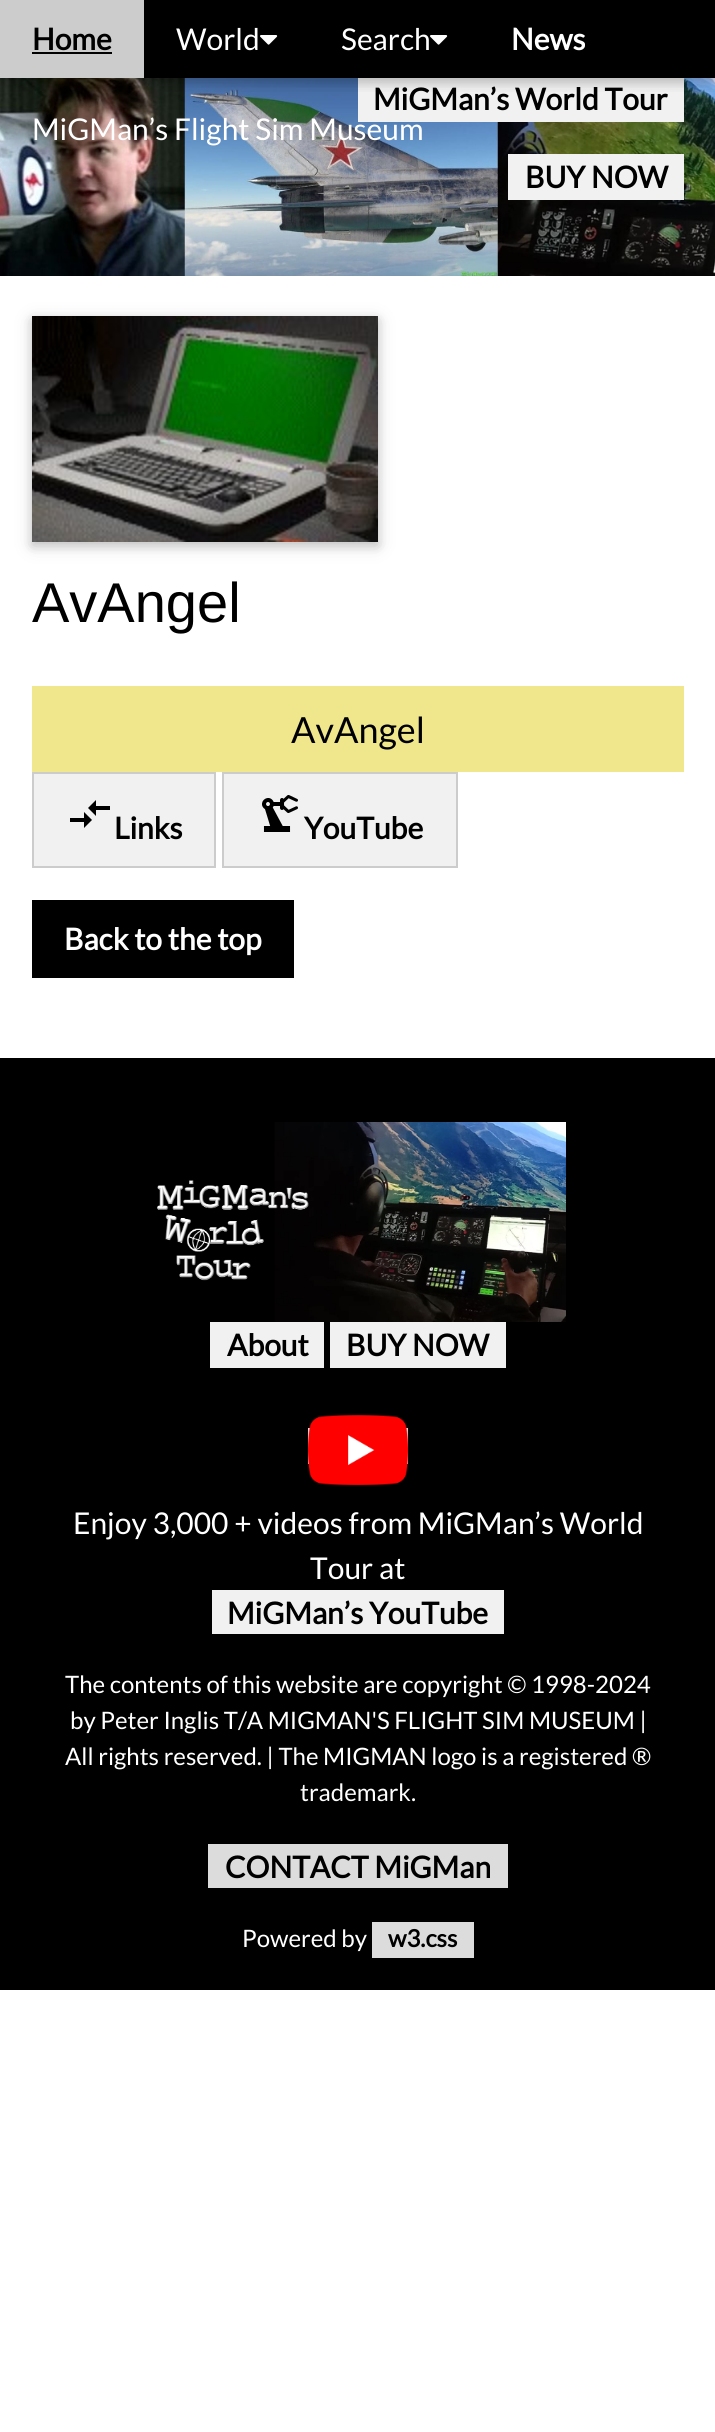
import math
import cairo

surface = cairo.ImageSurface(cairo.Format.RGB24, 715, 2432)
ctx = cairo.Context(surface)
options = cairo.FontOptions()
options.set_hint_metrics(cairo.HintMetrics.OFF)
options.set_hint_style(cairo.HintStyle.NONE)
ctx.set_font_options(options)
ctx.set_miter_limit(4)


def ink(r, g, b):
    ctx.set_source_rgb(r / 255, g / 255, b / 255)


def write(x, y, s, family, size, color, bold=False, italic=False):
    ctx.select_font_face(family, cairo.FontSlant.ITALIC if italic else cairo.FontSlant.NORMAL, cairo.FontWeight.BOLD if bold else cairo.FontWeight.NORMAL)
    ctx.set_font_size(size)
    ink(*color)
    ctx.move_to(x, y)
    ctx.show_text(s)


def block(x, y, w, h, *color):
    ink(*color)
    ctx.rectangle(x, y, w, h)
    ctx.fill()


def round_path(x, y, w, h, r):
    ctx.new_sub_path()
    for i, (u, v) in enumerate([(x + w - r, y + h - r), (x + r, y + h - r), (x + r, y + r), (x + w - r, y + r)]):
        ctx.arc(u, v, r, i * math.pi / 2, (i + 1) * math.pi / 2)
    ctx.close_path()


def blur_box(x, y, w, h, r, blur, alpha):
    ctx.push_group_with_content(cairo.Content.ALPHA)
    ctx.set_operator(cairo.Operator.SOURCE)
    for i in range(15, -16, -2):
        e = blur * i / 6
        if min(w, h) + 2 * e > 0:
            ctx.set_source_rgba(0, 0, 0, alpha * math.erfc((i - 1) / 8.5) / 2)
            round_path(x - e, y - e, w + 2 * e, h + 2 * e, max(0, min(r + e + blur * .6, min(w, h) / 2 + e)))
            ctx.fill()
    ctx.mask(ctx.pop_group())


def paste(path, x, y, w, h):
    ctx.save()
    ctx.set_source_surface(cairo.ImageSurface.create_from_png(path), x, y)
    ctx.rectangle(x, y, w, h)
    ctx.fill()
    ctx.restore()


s1 = dict(family="Lato", size=30, color=(255, 255, 255))
s2 = dict(family="Lato", size=30, color=(0, 0, 0), bold=True)
s3 = dict(family="Lato", size=30, color=(255, 255, 255), bold=True)
s4 = dict(family="Liberation Sans", size=56, color=(0, 0, 0))
s5 = dict(family="Lato", size=36, color=(0, 0, 0))
s6 = dict(family="Lato", size=24, color=(255, 255, 255))
s7 = dict(family="Lato", size=24, color=(0, 0, 0), bold=True)

ink(255, 255, 255)
ctx.paint()
block(144, 0, 571, 78, 0, 0, 0)
paste("pic2.png", 0, 78, 715, 198)
write(32, 140, "MiGMan’s Flight Sim Museum", **s1)
block(358, 78, 326, 44, 241, 241, 241)
ctx.save()
ctx.rectangle(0, 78, 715, 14)
ctx.clip()
ink(0, 0, 0)
blur_box(0, 4, 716, 78, 0, 10, 0.12)
ctx.restore()
ctx.save()
ctx.rectangle(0, 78, 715, 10)
ctx.clip()
ink(0, 0, 0)
blur_box(0, 4, 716, 78, 0, 5, 0.16)
ctx.restore()
block(0, 0, 144, 78, 204, 204, 204)
write(32, 50, "Home", **s2)
block(32, 52, 80, 2, 0, 0, 0)
write(176, 50, "World", **s1)
paste("pic1.png", 260, 35, 18, 10)
write(341, 50, "Search", **s1)
paste("pic1.png", 430, 35, 18, 10)
write(511, 50, "News", **s3)
write(373, 110, "MiGMan’s World Tour", **s2)
block(508, 154, 176, 46, 241, 241, 241)
write(525, 188, "BUY NOW", **s2)
ink(0, 0, 0)
blur_box(32, 320, 346, 226, 0, 10, 0.12)
blur_box(32, 320, 346, 226, 0, 5, 0.16)
paste("pic3.png", 32, 316, 346, 226)
write(32, 622, "AvAngel", **s4)
block(32, 686, 652, 86, 240, 230, 140)
write(291, 743, "AvAngel", **s5)
ink(241, 241, 241)
ctx.rectangle(33, 773, 182, 94)
ctx.fill_preserve()
ink(204, 204, 204)
ctx.stroke()
ink(0, 0, 0)
ctx.new_path()
ctx.move_to(96, 816)
ctx.line_to(88, 808)
ctx.line_to(96, 800)
ctx.line_to(96, 806)
ctx.line_to(110, 806)
ctx.line_to(110, 810)
ctx.line_to(96, 810)
ctx.close_path()
ctx.move_to(84, 818)
ctx.line_to(84, 812)
ctx.line_to(92, 820)
ctx.line_to(84, 828)
ctx.line_to(84, 822)
ctx.line_to(70, 822)
ctx.line_to(70, 818)
ctx.close_path()
ctx.fill()
write(114, 839, "Links", **s2)
ink(241, 241, 241)
ctx.rectangle(223, 773, 234, 94)
ctx.fill_preserve()
ink(204, 204, 204)
ctx.stroke()
paste("pic4.png", 262, 795, 36, 37)
write(304, 839, "YouTube", **s2)
block(32, 900, 262, 78, 0, 0, 0)
write(64, 950, "Back to the top", **s3)
block(0, 1058, 715, 932, 0, 0, 0)
paste("pic5.png", 150, 1122, 416, 200)
block(210, 1322, 114, 46, 241, 241, 241)
write(227, 1356, "About", **s2)
block(330, 1322, 176, 46, 241, 241, 241)
write(346, 1356, "BUY NOW", **s2)
block(308, 1428, 100, 36, 220, 220, 220)
paste("pic6.png", 308, 1415, 100, 71)
write(73, 1534, "Enjoy 3,000 + videos from MiGMan’s World", **s1)
write(310, 1579, "Tour at", **s1)
block(212, 1590, 292, 44, 241, 241, 241)
write(227, 1624, "MiGMan’s YouTube", **s2)
write(65, 1693, "The contents of this website are copyright © 1998-2024", **s6)
write(70, 1729, "by Peter Inglis T/A MIGMAN'S FLIGHT SIM MUSEUM |", **s6)
write(65, 1765, "All rights reserved. | The MIGMAN logo is a registered ®", **s6)
write(300, 1801, "trademark.", **s6)
block(208, 1844, 300, 44, 220, 220, 220)
write(225, 1878, "CONTACT MiGMan", **s2)
write(242, 1947, "Powered by", **s6)
block(372, 1922, 102, 36, 220, 220, 220)
write(388, 1947, "w3.css", **s7)
surface.write_to_png("screenshot.png")
